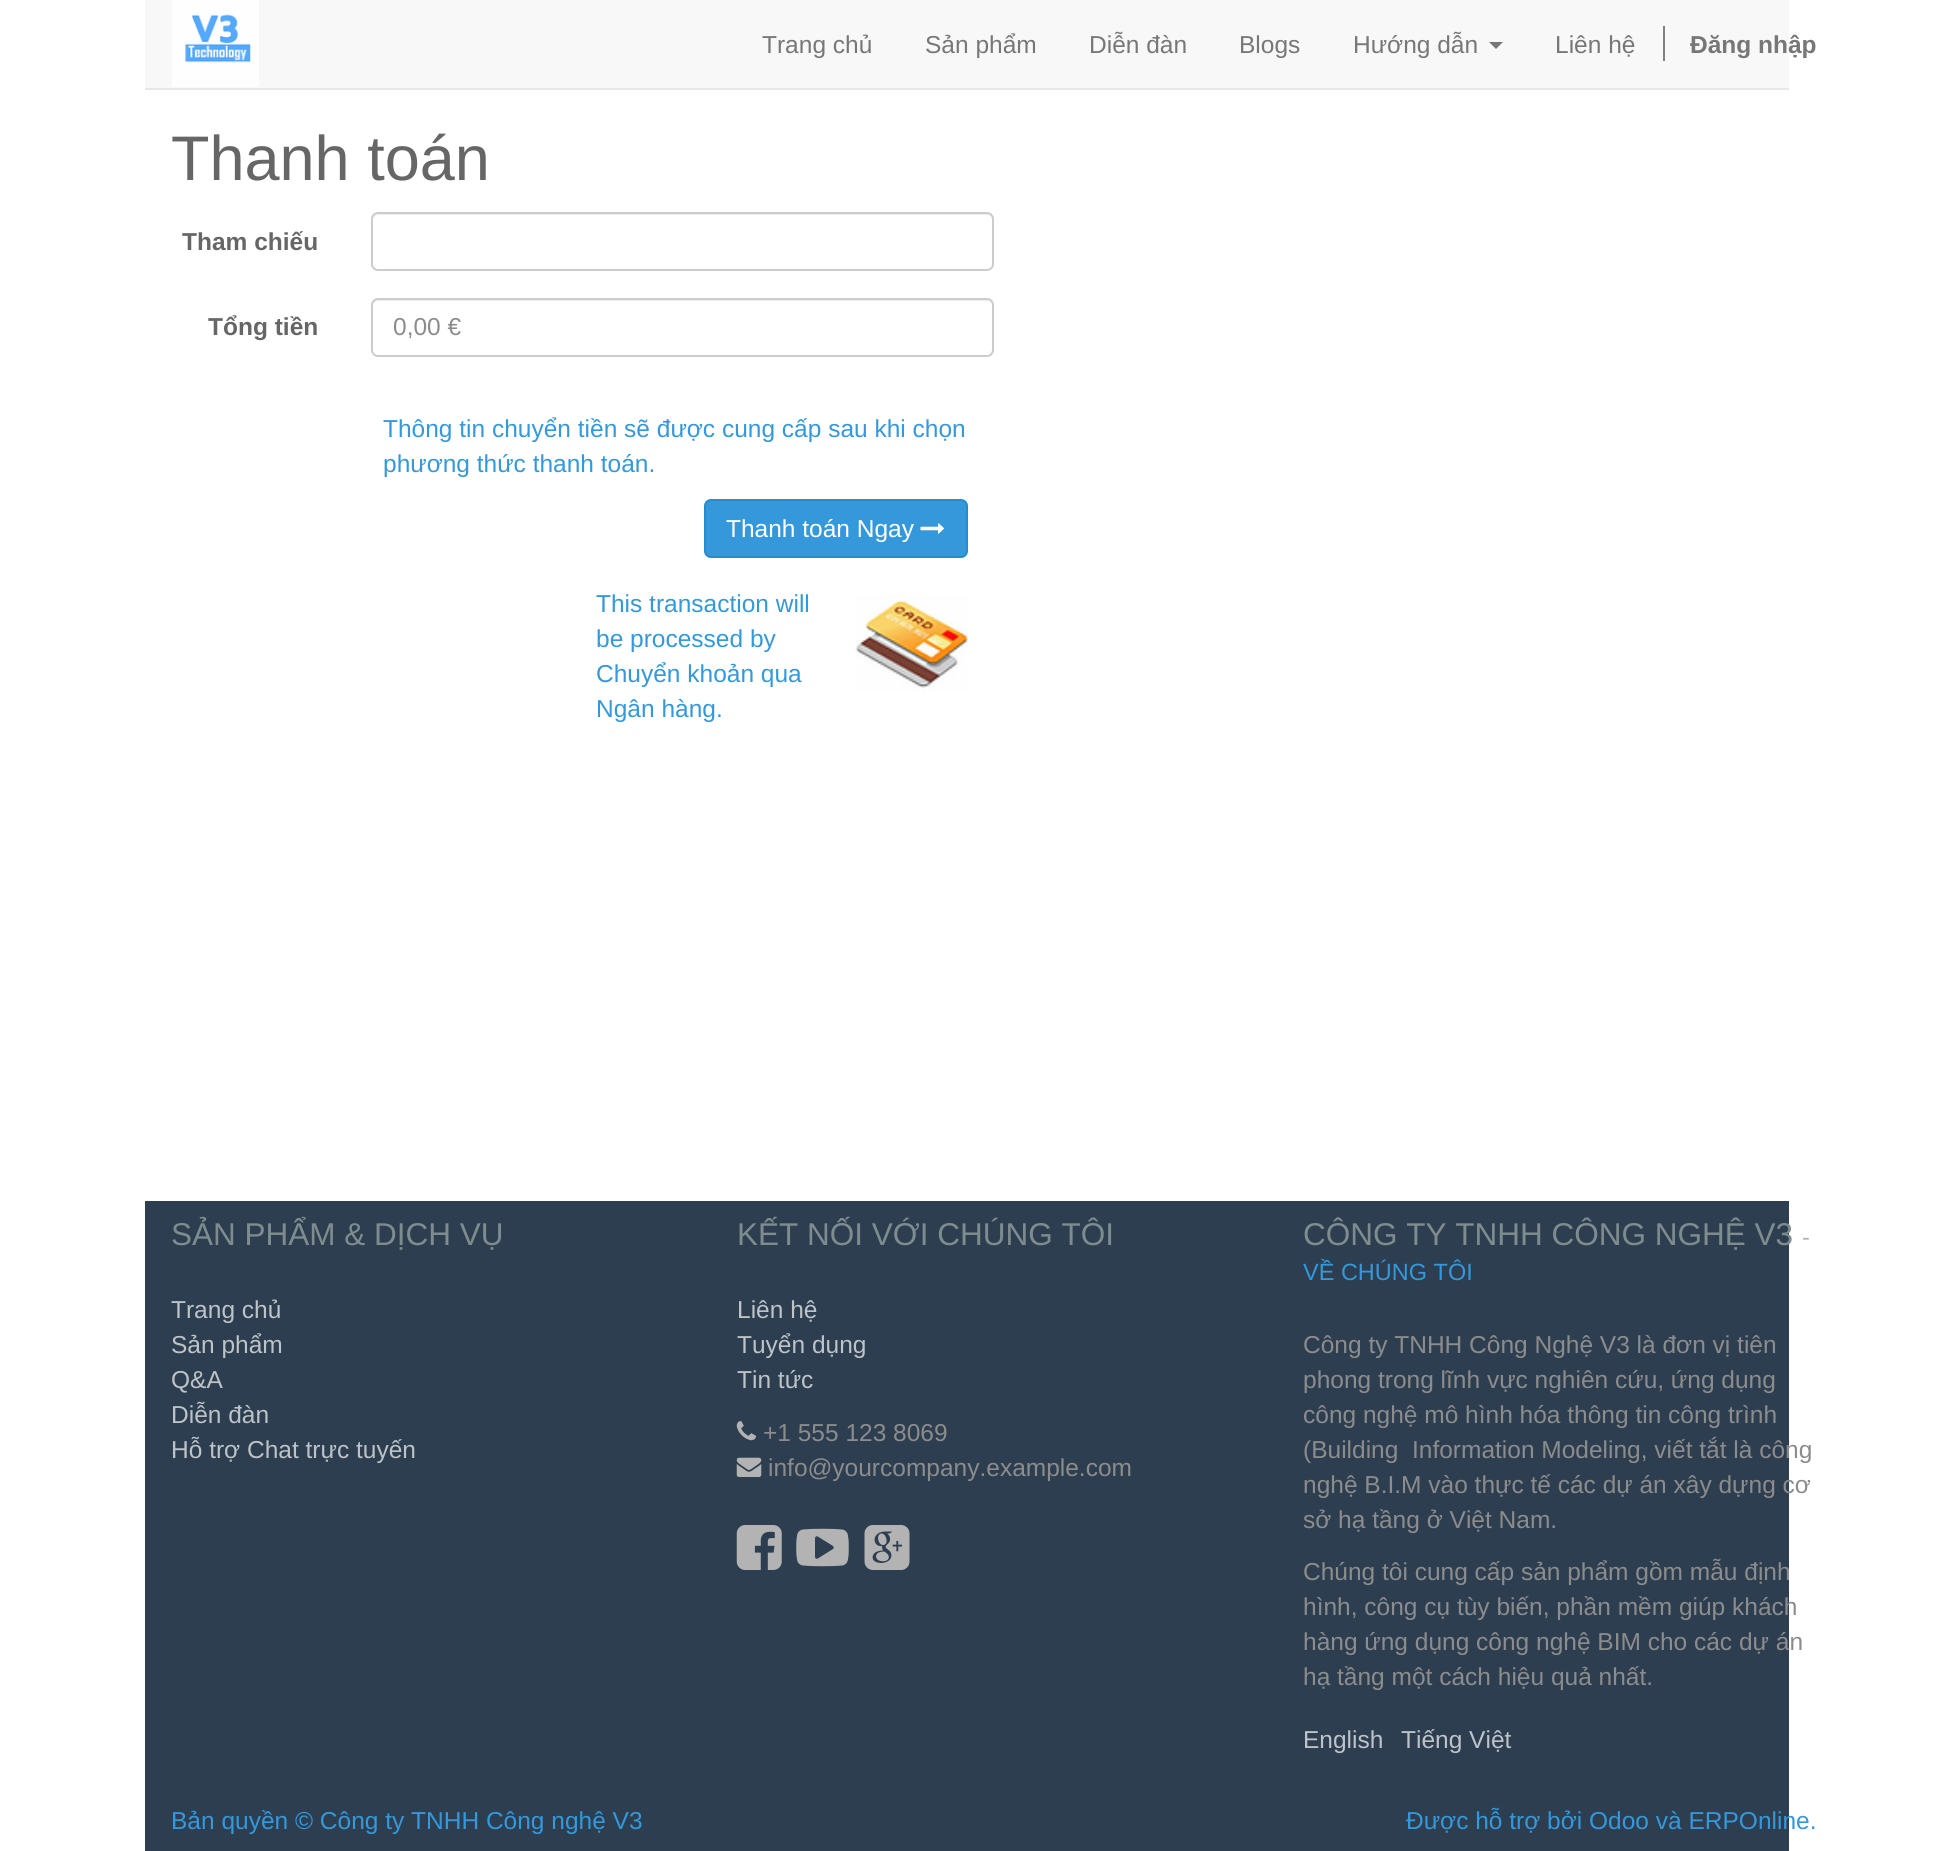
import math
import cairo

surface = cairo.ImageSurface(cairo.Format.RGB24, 1933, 1851)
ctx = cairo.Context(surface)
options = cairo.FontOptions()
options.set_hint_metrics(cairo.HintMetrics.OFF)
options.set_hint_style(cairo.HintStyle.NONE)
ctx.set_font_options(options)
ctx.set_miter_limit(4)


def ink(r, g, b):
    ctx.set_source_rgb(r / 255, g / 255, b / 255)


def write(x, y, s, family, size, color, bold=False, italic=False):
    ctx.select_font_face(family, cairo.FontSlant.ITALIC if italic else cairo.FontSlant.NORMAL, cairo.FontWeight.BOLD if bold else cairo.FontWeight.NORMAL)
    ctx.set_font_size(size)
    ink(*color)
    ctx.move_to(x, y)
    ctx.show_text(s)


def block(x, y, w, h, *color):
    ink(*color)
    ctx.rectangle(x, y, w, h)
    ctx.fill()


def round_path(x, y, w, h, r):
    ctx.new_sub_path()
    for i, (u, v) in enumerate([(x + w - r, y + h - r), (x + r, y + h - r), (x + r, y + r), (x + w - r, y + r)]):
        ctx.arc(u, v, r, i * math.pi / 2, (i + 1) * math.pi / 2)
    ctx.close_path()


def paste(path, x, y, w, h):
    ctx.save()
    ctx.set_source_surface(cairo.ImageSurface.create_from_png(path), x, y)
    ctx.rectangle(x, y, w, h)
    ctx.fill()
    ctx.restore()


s1 = dict(family="Liberation Sans", size=24.5, color=(119, 119, 119))
s2 = dict(family="Liberation Sans", size=24.5, color=(119, 119, 119), bold=True)
s3 = dict(family="Liberation Sans", size=63, color=(102, 102, 102))
s4 = dict(family="Liberation Sans", size=24.5, color=(102, 102, 102), bold=True)
s5 = dict(family="Liberation Sans", size=24.5, color=(140, 140, 140))
s6 = dict(family="Liberation Sans", size=24.5, color=(52, 152, 219))
s7 = dict(family="Liberation Sans", size=24.5, color=(255, 255, 255))
s8 = dict(family="Liberation Sans", size=31.5, color=(127, 140, 141))
s9 = dict(family="Liberation Sans", size=24.5, color=(189, 195, 199))
s10 = dict(family="Liberation Sans", size=23.5, color=(179, 179, 179))
s11 = dict(family="Liberation Sans", size=23.5, color=(52, 152, 219))

ink(255, 255, 255)
ctx.paint()
block(145, 0, 1644, 88, 248, 248, 248)
block(145, 88, 1644, 2, 231, 231, 231)
paste("pic1.png", 172, 0, 87, 87)
write(762, 53, "Trang chủ", **s1)
write(925, 53, "Sản phẩm", **s1)
write(1089, 53, "Diễn đàn", **s1)
write(1239, 53, "Blogs", **s1)
write(1353, 53, "Hướng dẫn", **s1)
ctx.new_path()
ctx.move_to(1489, 42)
ctx.line_to(1503, 42)
ctx.line_to(1496, 49)
ctx.close_path()
ctx.fill()
write(1555, 53, "Liên hệ", **s1)
block(1663, 26, 2, 35, 128, 128, 128)
write(1690, 53, "Đăng nhập", **s2)
write(171, 180, "Thanh toán", **s3)
write(182, 250, "Tham chiếu", **s4)
ink(236, 236, 236)
ctx.new_path()
ctx.move_to(378, 215)
ctx.line_to(987, 215)
ctx.curve_to(990, 215, 992, 218, 992, 220)
ctx.line_to(992, 219)
ctx.curve_to(992, 216, 990, 214, 987, 214)
ctx.line_to(378, 214)
ctx.curve_to(375, 214, 373, 216, 373, 219)
ctx.line_to(373, 220)
ctx.curve_to(373, 218, 375, 215, 378, 215)
ctx.close_path()
ctx.fill()
round_path(372, 213, 621, 57, 6)
ink(204, 204, 204)
ctx.stroke()
write(208, 335, "Tổng tiền", **s4)
ink(236, 236, 236)
ctx.new_path()
ctx.move_to(378, 301)
ctx.line_to(987, 301)
ctx.curve_to(990, 301, 992, 303, 992, 306)
ctx.curve_to(992, 303, 991, 299, 987, 299)
ctx.line_to(378, 299)
ctx.curve_to(374, 299, 373, 303, 373, 306)
ctx.curve_to(373, 303, 375, 301, 378, 301)
ctx.close_path()
ctx.fill()
round_path(372, 299, 621, 57, 6)
ink(204, 204, 204)
ctx.stroke()
write(393, 335, "0,00 €", **s5)
write(383, 437, "Thông tin chuyển tiền sẽ được cung cấp sau khi chọn", **s6)
write(383, 472, "phương thức thanh toán.", **s6)
round_path(705, 500, 262, 57, 6)
ctx.fill_preserve()
ink(37, 140, 209)
ctx.stroke()
write(726, 537, "Thanh toán Ngay", **s7)
paste("pic2.png", 920, 523, 25, 11)
write(596, 612, "This transaction will", **s6)
paste("pic3.png", 855, 595, 113, 96)
write(596, 647, "be processed by", **s6)
write(596, 682, "Chuyển khoản qua", **s6)
write(596, 717, "Ngân hàng.", **s6)
block(145, 1201, 1644, 650, 44, 62, 80)
write(171, 1245, "SẢN PHẨM & DỊCH VỤ", **s8)
write(171, 1318, "Trang chủ", **s9)
write(171, 1353, "Sản phẩm", **s9)
write(171, 1388, "Q&A", **s9)
write(171, 1423, "Diễn đàn", **s9)
write(171, 1458, "Hỗ trợ Chat trực tuyến", **s9)
write(737, 1245, "KẾT NỐI VỚI CHÚNG TÔI", **s8)
write(737, 1318, "Liên hệ", **s9)
write(737, 1353, "Tuyển dụng", **s9)
write(737, 1388, "Tin tức", **s9)
paste("pic4.png", 736, 1421, 20, 20)
write(763, 1441, "+1 555 123 8069", **s5)
paste("pic5.png", 736, 1457, 26, 20)
write(768, 1476, "info@yourcompany.example.com", **s5)
paste("pic6.png", 736, 1525, 46, 45)
paste("pic7.png", 796, 1528, 53, 39)
paste("pic8.png", 864, 1525, 46, 45)
write(1303, 1245, "CÔNG TY TNHH CÔNG NGHỆ V3", **s8)
write(1802, 1245, "-", **s10)
write(1303, 1280, "VỀ CHÚNG TÔI", **s11)
write(1303, 1353, "Công ty TNHH Công Nghệ V3 là đơn vị tiên", **s5)
write(1303, 1388, "phong trong lĩnh vực nghiên cứu, ứng dụng", **s5)
write(1303, 1423, "công nghệ mô hình hóa thông tin công trình", **s5)
write(1303, 1458, "(Building  Information Modeling, viết tắt là công", **s5)
write(1303, 1493, "nghệ B.I.M vào thực tế các dự án xây dựng cơ", **s5)
write(1303, 1528, "sở hạ tầng ở Việt Nam.", **s5)
write(1303, 1580, "Chúng tôi cung cấp sản phẩm gồm mẫu định", **s5)
write(1303, 1615, "hình, công cụ tùy biến, phần mềm giúp khách", **s5)
write(1303, 1650, "hàng ứng dụng công nghệ BIM cho các dự án", **s5)
write(1303, 1685, "hạ tầng một cách hiệu quả nhất.", **s5)
write(1303, 1748, "English", **s9)
write(1401, 1748, "Tiếng Việt", **s9)
write(171, 1829, "Bản quyền © Công ty TNHH Công nghệ V3", **s6)
write(1406, 1829, "Được hỗ trợ bởi Odoo và ERPOnline.", **s6)
surface.write_to_png("screenshot.png")
